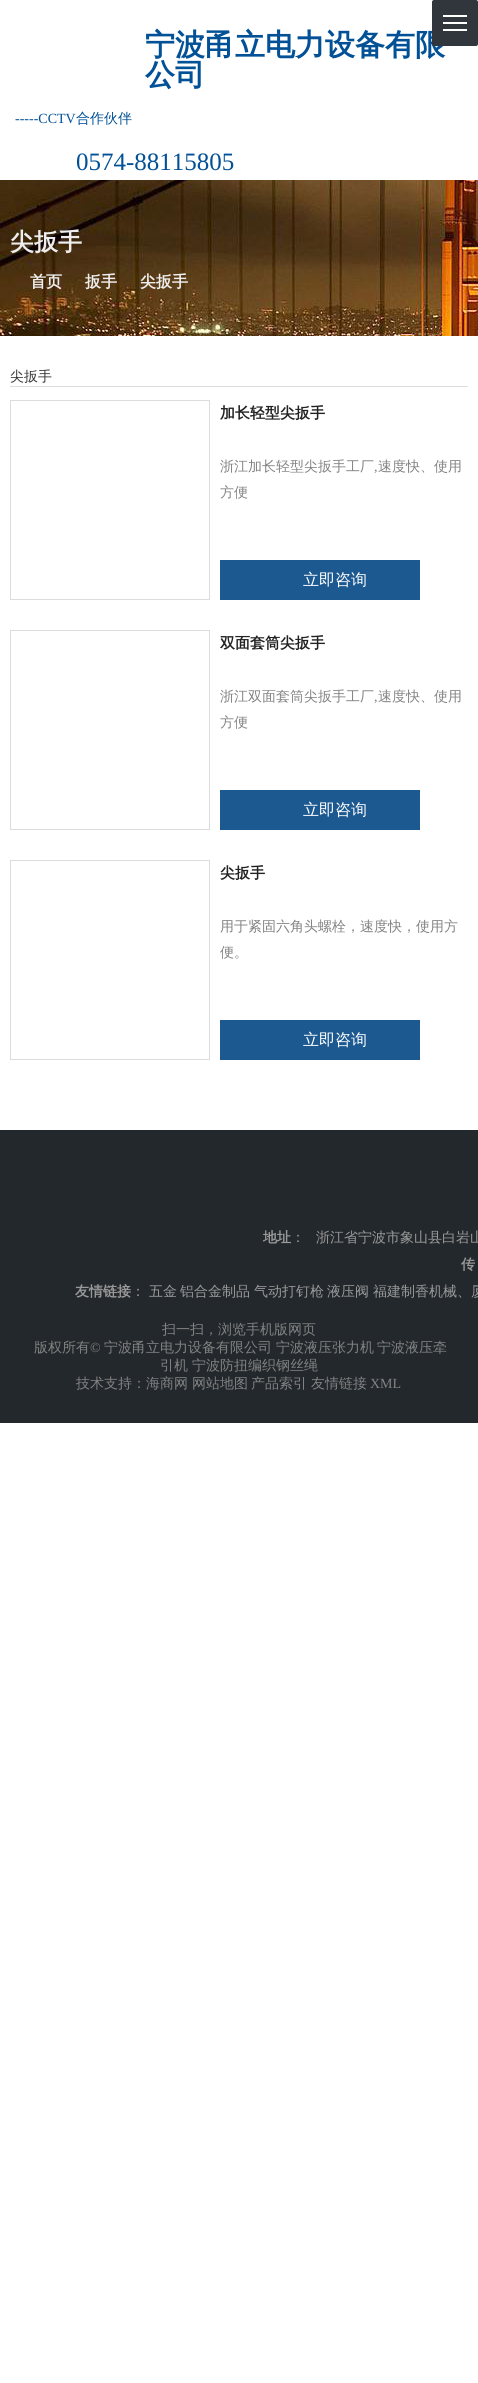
import math
import cairo

surface = cairo.ImageSurface(cairo.Format.RGB24, 478, 2383)
ctx = cairo.Context(surface)
options = cairo.FontOptions()
options.set_hint_metrics(cairo.HintMetrics.OFF)
options.set_hint_style(cairo.HintStyle.NONE)
ctx.set_font_options(options)
ctx.set_miter_limit(4)


def ink(r, g, b):
    ctx.set_source_rgb(r / 255, g / 255, b / 255)


def write(x, y, s, family, size, color, bold=False, italic=False):
    ctx.select_font_face(family, cairo.FontSlant.ITALIC if italic else cairo.FontSlant.NORMAL, cairo.FontWeight.BOLD if bold else cairo.FontWeight.NORMAL)
    ctx.set_font_size(size)
    ink(*color)
    ctx.move_to(x, y)
    ctx.show_text(s)


def block(x, y, w, h, *color):
    ink(*color)
    ctx.rectangle(x, y, w, h)
    ctx.fill()


def round_path(x, y, w, h, r):
    ctx.new_sub_path()
    for i, (u, v) in enumerate([(x + w - r, y + h - r), (x + r, y + h - r), (x + r, y + r), (x + w - r, y + r)]):
        ctx.arc(u, v, r, i * math.pi / 2, (i + 1) * math.pi / 2)
    ctx.close_path()


def paste(path, x, y, w, h):
    ctx.save()
    ctx.set_source_surface(cairo.ImageSurface.create_from_png(path), x, y)
    ctx.rectangle(x, y, w, h)
    ctx.fill()
    ctx.restore()


s1 = dict(family="WenQuanYi Zen Hei", size=30, color=(2, 81, 150), bold=True)
s2 = dict(family="Liberation Serif", size=14, color=(2, 81, 150))
s3 = dict(family="WenQuanYi Zen Hei Medium", size=14, color=(2, 81, 150))
s4 = dict(family="Liberation Serif", size=25, color=(2, 81, 150))
s5 = dict(family="WenQuanYi Zen Hei", size=24, color=(238, 238, 238), bold=True)
s6 = dict(family="WenQuanYi Zen Hei", size=16, color=(238, 238, 238), bold=True)
s7 = dict(family="WenQuanYi Zen Hei Medium", size=14, color=(51, 51, 51))
s8 = dict(family="WenQuanYi Zen Hei", size=15, color=(34, 34, 34), bold=True)
s9 = dict(family="WenQuanYi Zen Hei Medium", size=14, color=(130, 130, 130))
s10 = dict(family="Liberation Serif", size=14, color=(130, 130, 130))
s11 = dict(family="WenQuanYi Zen Hei Medium", size=16, color=(255, 255, 255))
s12 = dict(family="WenQuanYi Zen Hei", size=14, color=(153, 153, 153), bold=True)
s13 = dict(family="WenQuanYi Zen Hei Medium", size=14, color=(153, 153, 153))

ink(255, 255, 255)
ctx.paint()
write(145, 55, "宁波甬立电力设备有限", **s1)
ink(48, 54, 59)
round_path(432, 0, 46, 46, 2)
ctx.fill()
block(443, 15, 24, 2, 255, 255, 255)
block(443, 22, 24, 2, 255, 255, 255)
block(443, 29, 24, 2, 255, 255, 255)
write(145, 85, "公司", **s1)
write(15, 123, "-----CCTV", **s2)
write(76, 123, "合作伙伴", **s3)
write(76, 170, "0574-88115805", **s4)
paste("pic1.png", 0, 180, 478, 156)
write(10, 250, "尖扳手", **s5)
write(30, 287, "首页", **s6)
write(85, 287, "扳手", **s6)
write(140, 287, "尖扳手", **s6)
block(10, 386, 458, 1, 221, 221, 221)
write(10, 381, "尖扳手", **s7)
ctx.rectangle(10.5, 400.5, 199, 199)
ink(220, 220, 220)
ctx.set_line_width(1)
ctx.stroke()
write(220, 418, "加长轻型尖扳手", **s8)
write(220, 471, "浙江加长轻型尖扳手工厂", **s9)
write(374, 471, ",", **s10)
write(378, 471, "速度快、使用", **s9)
write(220, 497, "方便", **s9)
block(220, 560, 200, 40, 29, 89, 145)
write(303, 585, "立即咨询", **s11)
ctx.rectangle(10.5, 630.5, 199, 199)
ink(220, 220, 220)
ctx.stroke()
write(220, 648, "双面套筒尖扳手", **s8)
write(220, 701, "浙江双面套筒尖扳手工厂", **s9)
write(374, 701, ",", **s10)
write(378, 701, "速度快、使用", **s9)
write(220, 727, "方便", **s9)
block(220, 790, 200, 40, 29, 89, 145)
write(303, 815, "立即咨询", **s11)
ctx.rectangle(10.5, 860.5, 199, 199)
ink(220, 220, 220)
ctx.stroke()
write(220, 878, "尖扳手", **s8)
write(220, 931, "用于紧固六角头螺栓，速度快，使用方", **s9)
write(220, 957, "便。", **s9)
block(220, 1020, 200, 40, 29, 89, 145)
write(303, 1045, "立即咨询", **s11)
block(0, 1130, 478, 293, 35, 40, 44)
write(263, 1242, "地址", **s12)
write(291, 1242, "：", **s13)
write(316, 1242, "浙江省宁波市象山县白岩山", **s13)
write(461, 1269, "传", **s12)
write(75, 1296, "友情链接", **s12)
write(131, 1296, "：", **s13)
write(149, 1296, "五金", **s13)
write(180, 1296, "铝合金制品", **s13)
write(254, 1296, "气动打钉枪", **s13)
write(327, 1296, "液压阀", **s13)
write(373, 1296, "福建制香机械、厦", **s13)
write(162, 1334, "扫一扫，浏览手机版网页", **s9)
write(34, 1352, "版权所有", **s9)
write(90, 1352, "©", **s10)
write(104, 1352, "宁波甬立电力设备有限公司", **s9)
write(276, 1352, "宁波液压张力机", **s9)
write(377, 1352, "宁波液压牵", **s9)
write(160, 1370, "引机", **s9)
write(192, 1370, "宁波防扭编织钢丝绳", **s9)
write(76, 1388, "技术支持：海商网", **s9)
write(192, 1388, "网站地图", **s9)
write(251, 1388, "产品索引", **s9)
write(311, 1388, "友情链接", **s9)
write(370, 1388, "XML", **s10)
surface.write_to_png("screenshot.png")
